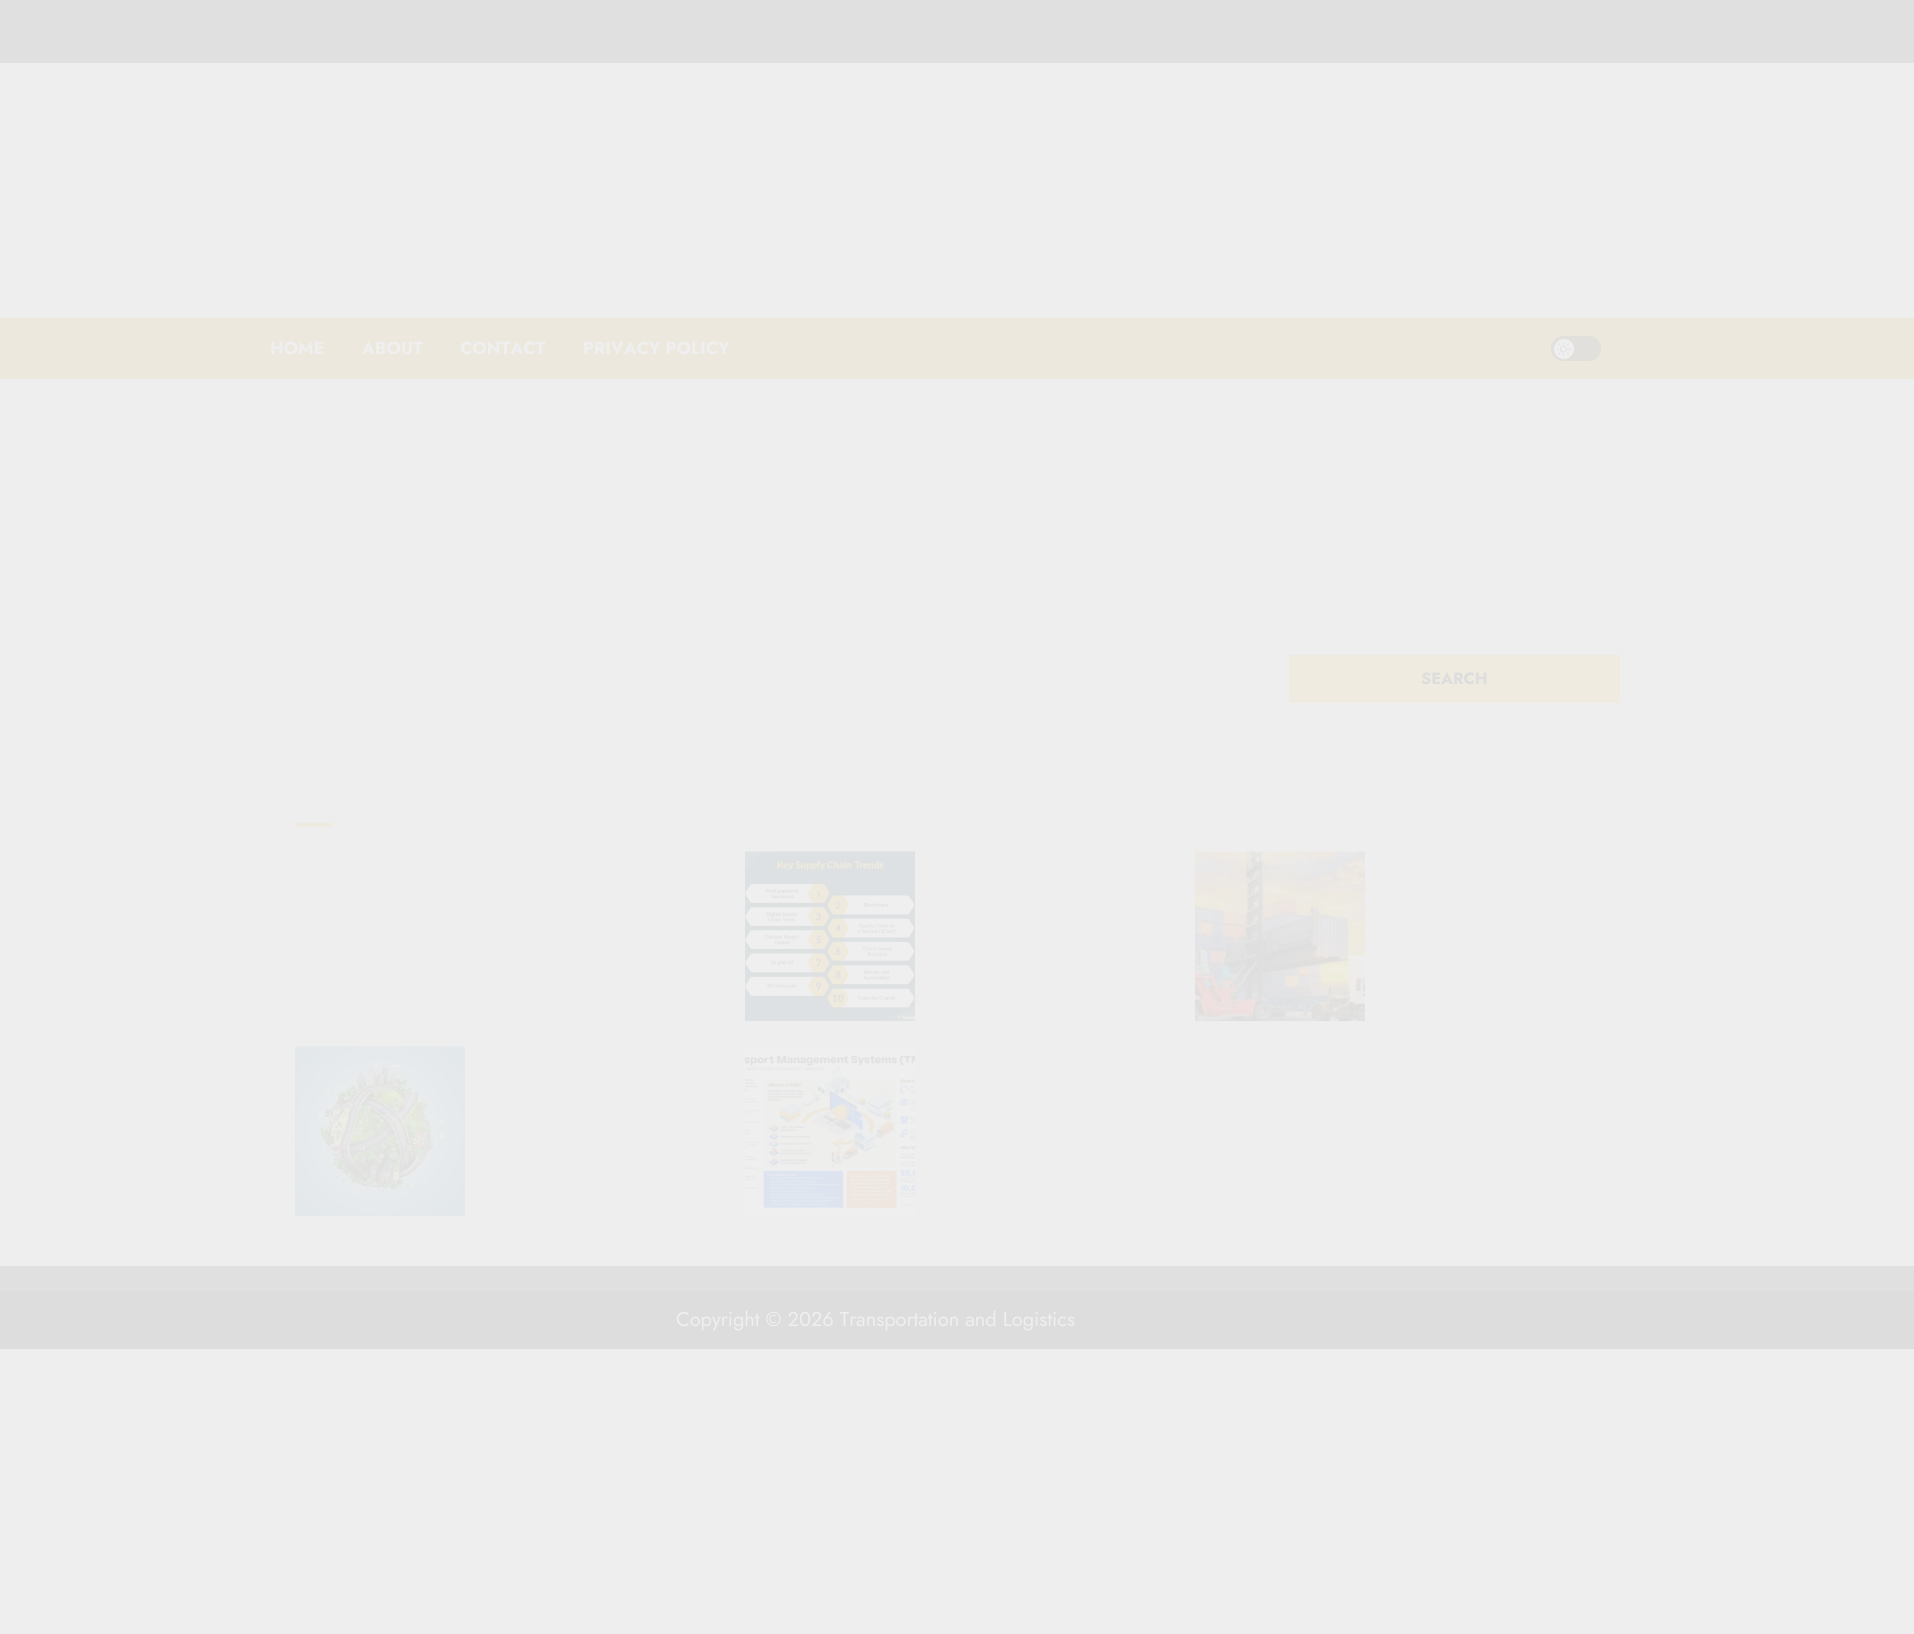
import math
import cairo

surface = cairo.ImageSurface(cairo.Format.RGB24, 1914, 1634)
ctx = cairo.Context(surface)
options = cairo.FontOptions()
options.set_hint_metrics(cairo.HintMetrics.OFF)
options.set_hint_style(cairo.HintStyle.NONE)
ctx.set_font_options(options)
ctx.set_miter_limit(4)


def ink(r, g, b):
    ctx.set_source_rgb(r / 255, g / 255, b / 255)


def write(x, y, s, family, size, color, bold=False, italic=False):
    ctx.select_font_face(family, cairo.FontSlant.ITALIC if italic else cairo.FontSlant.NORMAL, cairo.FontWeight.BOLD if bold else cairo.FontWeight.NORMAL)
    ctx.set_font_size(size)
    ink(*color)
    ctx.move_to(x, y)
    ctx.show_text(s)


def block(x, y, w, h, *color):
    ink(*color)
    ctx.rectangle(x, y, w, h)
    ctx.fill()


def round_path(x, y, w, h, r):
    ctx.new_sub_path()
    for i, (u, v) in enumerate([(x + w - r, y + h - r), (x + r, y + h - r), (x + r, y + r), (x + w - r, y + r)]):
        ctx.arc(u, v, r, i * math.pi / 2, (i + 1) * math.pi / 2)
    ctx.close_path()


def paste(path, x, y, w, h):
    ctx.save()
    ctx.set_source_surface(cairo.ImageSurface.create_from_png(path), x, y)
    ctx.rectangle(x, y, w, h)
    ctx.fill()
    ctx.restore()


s1 = dict(family="Jost", size=17.5, color=(239, 239, 239), bold=True)
s2 = dict(family="Jost", size=16.25, color=(221, 221, 221), bold=True)
s3 = dict(family="Jost", size=20, color=(239, 239, 239))

ink(238, 238, 238)
ctx.paint()
block(0, 0, 1914, 63, 224, 224, 224)
block(0, 318, 1914, 61, 237, 232, 221)
write(270, 354, "HOME", **s1)
write(362, 354, "ABOUT", **s1)
write(460, 354, "CONTACT", **s1)
write(583, 354, "PRIVACY POLICY", **s1)
ink(225, 224, 221)
round_path(1551, 336, 50, 25, 12.5)
ctx.fill()
ink(239, 239, 239)
ctx.arc(1564, 349, 10, 0, 2 * math.pi)
ctx.fill()
paste("pic1.png", 1556, 342, 15, 14)
block(1289, 655, 331, 48, 239, 235, 225)
write(1421, 684, "SEARCH", **s2)
block(295, 823, 38, 4, 239, 235, 225)
paste("pic2.png", 745, 851, 170, 171)
paste("pic3.png", 1195, 851, 170, 171)
paste("pic4.png", 295, 1046, 170, 171)
paste("pic5.png", 745, 1046, 170, 170)
block(0, 1266, 1914, 25, 224, 224, 224)
block(0, 1291, 1914, 58, 221, 221, 221)
write(676, 1326, "Copyright © 2026 Transportation and Logistics", **s3)
surface.write_to_png("screenshot.png")
